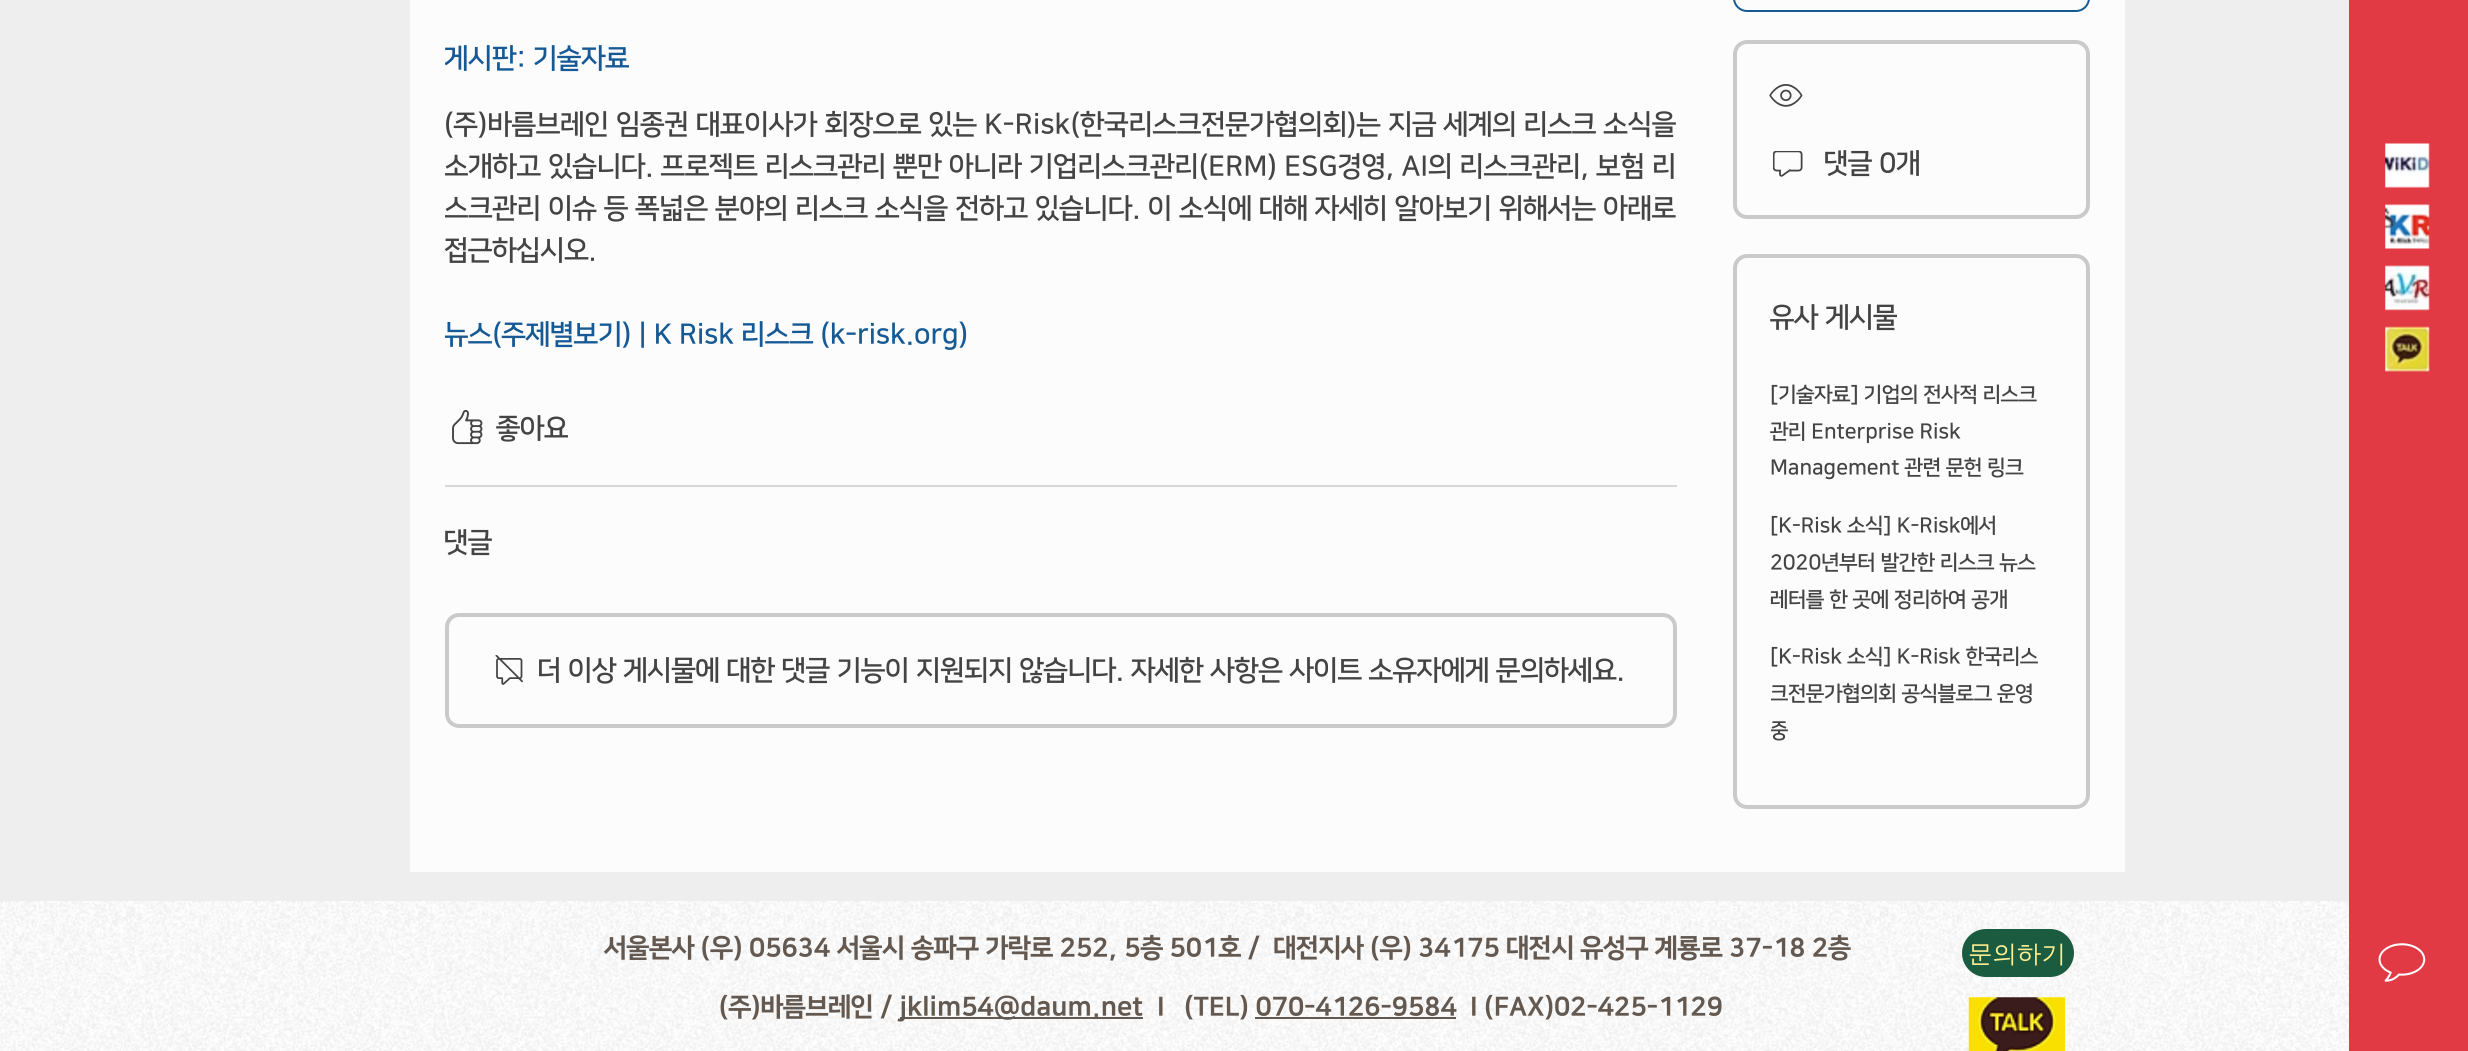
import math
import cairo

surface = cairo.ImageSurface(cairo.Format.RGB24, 2468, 1051)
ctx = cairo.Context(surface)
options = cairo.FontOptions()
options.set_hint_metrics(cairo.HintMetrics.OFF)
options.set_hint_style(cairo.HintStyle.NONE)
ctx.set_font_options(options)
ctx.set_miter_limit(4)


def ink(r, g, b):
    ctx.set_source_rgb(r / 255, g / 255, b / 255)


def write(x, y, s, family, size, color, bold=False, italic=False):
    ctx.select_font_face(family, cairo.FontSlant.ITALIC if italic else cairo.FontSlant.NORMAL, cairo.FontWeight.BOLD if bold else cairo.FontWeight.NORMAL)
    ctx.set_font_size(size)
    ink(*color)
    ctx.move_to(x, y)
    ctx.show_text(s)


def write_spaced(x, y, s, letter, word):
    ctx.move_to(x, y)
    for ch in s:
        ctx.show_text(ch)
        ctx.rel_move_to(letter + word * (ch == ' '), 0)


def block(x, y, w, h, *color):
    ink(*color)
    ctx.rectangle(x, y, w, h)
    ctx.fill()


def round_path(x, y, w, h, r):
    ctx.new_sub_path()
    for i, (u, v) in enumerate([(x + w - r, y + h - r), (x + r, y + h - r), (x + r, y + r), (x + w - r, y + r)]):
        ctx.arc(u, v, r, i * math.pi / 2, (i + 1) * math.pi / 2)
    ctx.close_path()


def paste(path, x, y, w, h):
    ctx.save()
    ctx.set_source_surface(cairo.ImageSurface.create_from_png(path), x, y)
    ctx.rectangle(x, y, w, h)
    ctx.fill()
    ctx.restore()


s1 = dict(family="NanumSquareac", size=28, color=(22, 89, 148), bold=True)
s2 = dict(family="NanumSquareac", size=28, color=(68, 68, 68), bold=True)
s3 = dict(family="NanumSquareac", size=21, color=(68, 68, 68), bold=True)
s4 = dict(family="NanumSquareac ExtraBold", size=26.25, color=(100, 89, 80))
s5 = dict(family="WenQuanYi Zen Hei Medium", size=24.5, color=(255, 240, 148))

ink(238, 238, 238)
ctx.paint()
block(410, 0, 1715, 872, 252, 252, 252)
ctx.save()
ctx.rectangle(445, 33, 185, 49)
ctx.clip()
write(444, 67, "게시판:", **s1)
ctx.restore()
write(533, 67, "기술자료", **s1)
ink(68, 68, 68)
write_spaced(444, 133, "(주)바름브레인 임종권 대표이사가 회장으로 있는 K-Risk(한국리스크전문가협의회)는 지금 세계의 리스크 소식을", 0.18, 0)
ctx.save()
ctx.rectangle(445, 103, 1232, 252)
ctx.clip()
write_spaced(444, 175, "소개하고 있습니다. 프로젝트 리스크관리 뿐만 아니라 기업리스크관리(ERM) ESG경영, AI의 리스크관리, 보험 리", 0.17, 0)
write_spaced(444, 217, "스크관리 이슈 등 폭넓은 분야의 리스크 소식을 전하고 있습니다. 이 소식에 대해 자세히 알아보기 위해서는 아래로", 0.18, 0)
ctx.restore()
write(444, 259, "접근하십시오.", **s2)
ctx.save()
ctx.rectangle(445, 103, 1232, 252)
ctx.clip()
write(444, 343, "뉴스(주제별보기) | K Risk 리스크 (k-risk.org)", **s1)
ctx.restore()
paste("pic1.png", 452, 409, 31, 36)
write(496, 437, "좋아요", **s2)
block(445, 485, 1232, 2, 215, 215, 215)
write(444, 551, "댓글", **s2)
round_path(447, 615, 1228, 111, 12)
ink(202, 202, 202)
ctx.set_line_width(4)
ctx.stroke()
paste("pic2.png", 495, 655, 28, 30)
write(537, 679, "더 이상 게시물에 대한 댓글 기능이 지원되지 않습니다. 자세한 사항은 사이트 소유자에게 문의하세요.", **s2)
round_path(1734, -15, 355, 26, 13)
ink(22, 89, 148)
ctx.set_line_width(2)
ctx.stroke()
round_path(1735, 42, 353, 175, 12)
ink(202, 202, 202)
ctx.set_line_width(4)
ctx.stroke()
paste("pic3.png", 1769, 84, 34, 23)
paste("pic4.png", 1773, 151, 30, 26)
write(1824, 172, "댓글 0개", **s2)
round_path(1735, 256, 353, 551, 12)
ink(202, 202, 202)
ctx.stroke()
write(1770, 326, "유사 게시물", **s2)
write(1770, 401, "[기술자료] 기업의 전사적 리스크", **s3)
write(1770, 438, "관리 Enterprise Risk", **s3)
write(1770, 474, "Management 관련 문헌 링크", **s3)
write(1770, 532, "[K-Risk 소식] K-Risk에서", **s3)
write(1770, 569, "2020년부터 발간한 리스크 뉴스", **s3)
write(1770, 606, "레터를 한 곳에 정리하여 공개", **s3)
write(1770, 663, "[K-Risk 소식] K-Risk 한국리스", **s3)
ctx.save()
ctx.rectangle(1771, 639, 280, 110)
ctx.clip()
write(1770, 700, "크전문가협의회 공식블로그 운영", **s3)
write(1770, 737, "중", **s3)
ctx.restore()
block(2349, 0, 119, 1051, 225, 58, 68)
paste("pic5.png", 2385, 143, 45, 45)
paste("pic6.png", 2385, 204, 45, 45)
paste("pic7.png", 2385, 265, 45, 46)
paste("pic8.png", 2385, 326, 45, 46)
block(0, 901, 2349, 150, 255, 255, 255)
paste("pic9.png", 0, 901, 2349, 150)
write(604, 956, "서울본사 (우) 05634 서울시 송파구 가락로 252, 5층 501호 /  대전지사 (우) 34175 대전시 유성구 계룡로 37-18 2층", **s4)
write(719, 1015, "(주)바름브레인 /", **s4)
block(900, 1017, 243, 2, 100, 89, 80)
write(899, 1015, "jklim54@daum.net", **s4)
write(1157, 1015, "I   (TEL) 070-4126-9584", **s4)
block(1255, 1017, 201, 2, 100, 89, 80)
write(1470, 1015, "I (FAX)02-425-1129", **s4)
ink(27, 91, 63)
round_path(1962, 929, 112, 48, 24)
ctx.fill()
write(1968, 962, "문의하기", **s5)
paste("pic10.png", 1968, 997, 97, 54)
paste("pic11.png", 2378, 943, 48, 39)
surface.write_to_png("screenshot.png")
